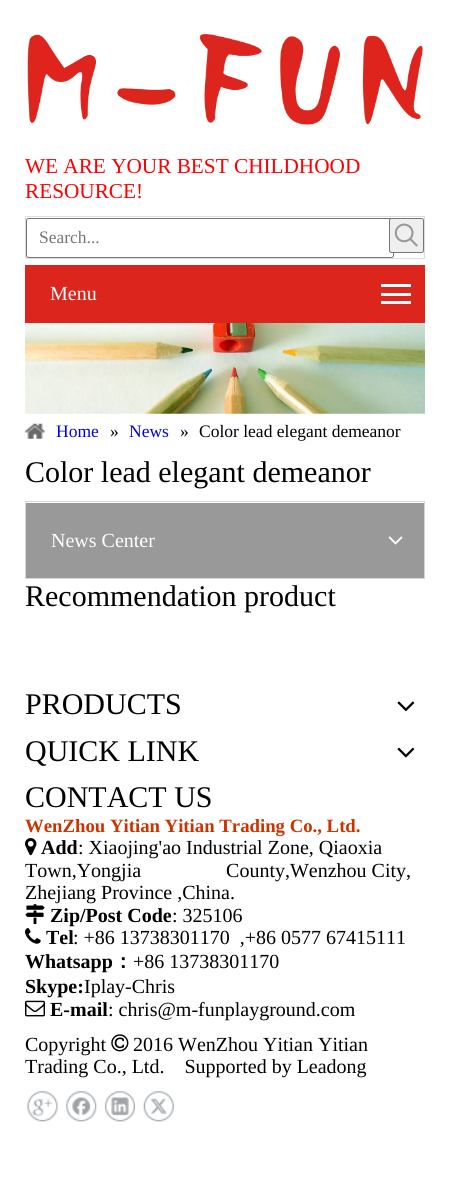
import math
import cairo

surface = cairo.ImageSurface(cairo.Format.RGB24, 449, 1185)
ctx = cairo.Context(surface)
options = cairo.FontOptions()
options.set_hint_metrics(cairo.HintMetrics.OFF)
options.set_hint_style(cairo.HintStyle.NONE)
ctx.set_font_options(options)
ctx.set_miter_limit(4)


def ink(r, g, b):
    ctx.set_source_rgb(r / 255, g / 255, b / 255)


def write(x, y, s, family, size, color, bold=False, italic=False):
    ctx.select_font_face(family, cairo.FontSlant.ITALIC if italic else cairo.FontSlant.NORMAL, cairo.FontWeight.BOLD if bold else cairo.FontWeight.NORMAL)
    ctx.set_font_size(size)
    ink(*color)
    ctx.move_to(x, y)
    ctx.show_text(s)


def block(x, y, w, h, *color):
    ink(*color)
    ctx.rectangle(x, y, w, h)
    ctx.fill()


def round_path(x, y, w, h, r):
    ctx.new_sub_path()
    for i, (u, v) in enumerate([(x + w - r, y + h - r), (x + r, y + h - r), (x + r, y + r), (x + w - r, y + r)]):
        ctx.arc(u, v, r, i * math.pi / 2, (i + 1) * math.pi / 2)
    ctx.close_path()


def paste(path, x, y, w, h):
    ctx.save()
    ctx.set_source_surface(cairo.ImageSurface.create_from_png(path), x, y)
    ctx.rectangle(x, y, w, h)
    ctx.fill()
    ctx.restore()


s1 = dict(family="Liberation Serif", size=21.25, color=(255, 0, 0))
s2 = dict(family="Liberation Serif", size=17.5, color=(117, 117, 117))
s3 = dict(family="Liberation Serif", size=20, color=(255, 255, 255))
s4 = dict(family="Liberation Serif", size=17.5, color=(0, 0, 238))
s5 = dict(family="Liberation Serif", size=17.5, color=(0, 0, 0))
s6 = dict(family="Liberation Serif", size=30, color=(0, 0, 0))
s7 = dict(family="Liberation Serif", size=18.75, color=(204, 51, 0), bold=True)
s8 = dict(family="Liberation Serif", size=20, color=(0, 0, 0), bold=True)
s9 = dict(family="Liberation Serif", size=20, color=(0, 0, 0))
s10 = dict(family="WenQuanYi Zen Hei", size=20, color=(0, 0, 0), bold=True)

ink(255, 255, 255)
ctx.paint()
paste("pic1.png", 27, 34, 396, 91)
write(25, 173, "WE ARE YOUR BEST CHILDHOOD", **s1)
write(25, 198, "RESOURCE!", **s1)
ctx.rectangle(25.5, 216.5, 399, 42)
ink(221, 221, 221)
ctx.set_line_width(1)
ctx.stroke()
round_path(26.5, 218.5, 367, 39, 2)
ink(118, 118, 118)
ctx.stroke()
write(39, 243, "Search...", **s2)
ink(239, 239, 239)
round_path(389.5, 218.5, 34, 34, 2)
ctx.fill_preserve()
ink(118, 118, 118)
ctx.stroke()
paste("pic2.png", 394, 223, 24, 24)
block(25, 265, 400, 58, 220, 37, 28)
write(50, 300, "Menu", **s3)
block(381, 284, 30, 3, 255, 255, 255)
block(381, 293, 30, 3, 255, 255, 255)
block(381, 301, 30, 3, 255, 255, 255)
paste("pic3.png", 25, 323, 400, 91)
paste("pic4.png", 25, 423, 20, 16)
write(56, 437, "Home", **s4)
write(110, 437, "»", **s5)
write(129, 437, "News", **s4)
write(180, 437, "»", **s5)
write(199, 437, "Color lead elegant demeanor", **s5)
write(25, 482, "Color lead elegant demeanor", **s6)
ctx.rectangle(25.5, 501.5, 399, 77)
ink(214, 214, 214)
ctx.stroke()
block(26, 503, 398, 75, 153, 153, 153)
write(51, 547, "News Center", **s3)
paste("pic5.png", 388, 536, 15, 9)
write(25, 606, "Recommendation product", **s6)
write(25, 714, "PRODUCTS", **s6)
paste("pic6.png", 397, 701, 18, 11)
write(25, 761, "QUICK LINK", **s6)
paste("pic7.png", 397, 747, 18, 11)
write(25, 807, "CONTACT US", **s6)
write(25, 832, "WenZhou Yitian Yitian Trading Co., Ltd.", **s7)
paste("pic8.png", 25, 838, 12, 18)
write(41, 854, "Add", **s8)
write(78, 854, ": Xiaojing'ao Industrial Zone, Qiaoxia", **s9)
write(25, 877, "Town,Yongjia                 County,Wenzhou City,", **s9)
write(25, 899, "Zhejiang Province ,China.", **s9)
paste("pic9.png", 25, 904, 20, 21)
write(50, 922, "Zip/Post Code", **s8)
write(172, 922, ": 325106", **s9)
paste("pic10.png", 25, 928, 16, 16)
write(46, 944, "Tel", **s8)
write(73, 944, ": +86 13738301170  ,+86 0577 67415111", **s9)
write(25, 968, "Whatsapp", **s8)
write(113, 968, "：", **s10)
write(133, 968, "+86 13738301170", **s9)
write(25, 993, "Skype:", **s8)
write(84, 993, "Iplay-Chris", **s9)
paste("pic11.png", 25, 1000, 20, 17)
write(50, 1016, "E-mail", **s8)
write(108, 1016, ": chris@m-funplayground.com", **s9)
write(25, 1051, "Copyright", **s9)
paste("pic12.png", 111, 1034, 18, 18)
write(133, 1051, "2016 WenZhou Yitian Yitian", **s9)
write(25, 1073, "Trading Co., Ltd.    Supported by Leadong", **s9)
paste("pic13.png", 27, 1091, 31, 31)
paste("pic14.png", 66, 1091, 31, 31)
paste("pic15.png", 104, 1091, 31, 31)
paste("pic16.png", 143, 1091, 31, 31)
surface.write_to_png("screenshot.png")
